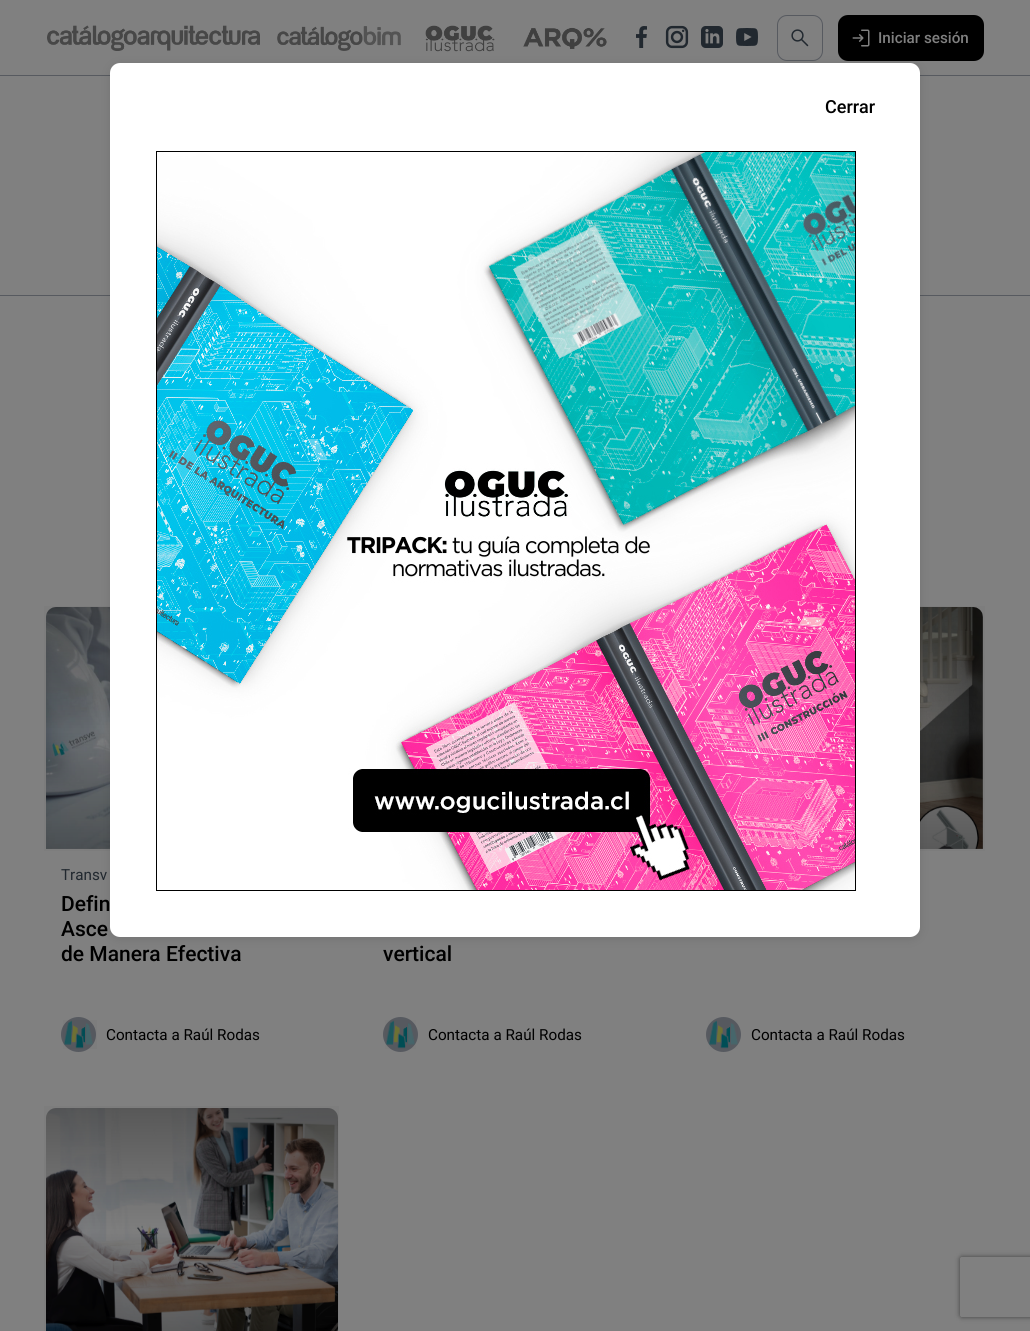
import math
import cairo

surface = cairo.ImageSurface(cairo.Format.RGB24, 1030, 1331)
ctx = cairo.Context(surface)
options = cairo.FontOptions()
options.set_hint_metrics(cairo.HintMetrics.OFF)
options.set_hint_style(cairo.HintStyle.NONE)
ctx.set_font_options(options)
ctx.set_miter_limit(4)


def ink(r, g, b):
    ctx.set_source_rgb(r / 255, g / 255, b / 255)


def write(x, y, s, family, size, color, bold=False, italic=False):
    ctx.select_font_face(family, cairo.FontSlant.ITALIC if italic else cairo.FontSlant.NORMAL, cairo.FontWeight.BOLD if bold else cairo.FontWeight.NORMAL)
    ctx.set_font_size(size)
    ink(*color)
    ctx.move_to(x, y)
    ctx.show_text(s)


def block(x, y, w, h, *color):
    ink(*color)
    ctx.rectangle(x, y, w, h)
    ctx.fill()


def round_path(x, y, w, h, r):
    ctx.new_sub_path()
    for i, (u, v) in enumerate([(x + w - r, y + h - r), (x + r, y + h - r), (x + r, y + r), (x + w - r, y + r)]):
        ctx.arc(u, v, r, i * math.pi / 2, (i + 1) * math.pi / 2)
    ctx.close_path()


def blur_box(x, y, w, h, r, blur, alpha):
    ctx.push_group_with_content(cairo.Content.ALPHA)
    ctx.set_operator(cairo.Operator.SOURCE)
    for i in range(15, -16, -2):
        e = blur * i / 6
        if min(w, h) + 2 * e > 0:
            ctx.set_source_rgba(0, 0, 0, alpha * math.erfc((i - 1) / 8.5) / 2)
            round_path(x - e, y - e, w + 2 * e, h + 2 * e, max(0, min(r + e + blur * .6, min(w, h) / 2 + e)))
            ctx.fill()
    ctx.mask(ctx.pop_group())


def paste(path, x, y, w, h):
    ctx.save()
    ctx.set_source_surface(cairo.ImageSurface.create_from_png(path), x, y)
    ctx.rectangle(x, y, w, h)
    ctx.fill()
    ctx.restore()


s1 = dict(family="Roboto Medium", size=15.25, color=(128, 128, 128))
s2 = dict(family="Roboto Medium", size=18, color=(0, 0, 0))
s3 = dict(family="Roboto", size=15.25, color=(33, 40, 47))
s4 = dict(family="Roboto Medium", size=21, color=(0, 0, 0))
s5 = dict(family="Roboto", size=15.25, color=(0, 0, 0))

ink(128, 128, 128)
ctx.paint()
round_path(777.5, 15.5, 45, 45, 9.5)
ink(87, 90, 96)
ctx.set_line_width(1)
ctx.stroke()
paste("pic1.png", 791, 29, 18, 18)
paste("pic2.png", 47, 25, 213, 26)
paste("pic3.png", 277, 26, 124, 25)
paste("pic4.png", 425, 25, 70, 27)
paste("pic5.png", 523, 27, 84, 22)
block(0, 75, 1030, 1, 87, 90, 96)
paste("pic6.png", 636, 26, 11, 22)
paste("pic7.png", 665, 25, 24, 24)
paste("pic8.png", 701, 26, 22, 22)
paste("pic9.png", 736, 28, 22, 18)
ink(0, 0, 0)
round_path(838, 15, 146, 46, 10)
ctx.fill()
paste("pic10.png", 852, 29, 18, 18)
write(878, 43, "Iniciar sesión", **s1)
block(0, 295, 1030, 1, 87, 90, 96)
paste("pic12.png", 44, 606, 66, 245)
gradient = cairo.LinearGradient(192, 607, 192, 849)
gradient.add_color_stop_rgba(0, 0, 0, 0, 0.3)
gradient.add_color_stop_rgba(0.51, 0, 0, 0, 0)
gradient.add_color_stop_rgba(1, 0, 0, 0, 0.3)
ctx.set_source(gradient)
ctx.new_path()
ctx.move_to(56, 607)
ctx.line_to(328, 607)
ctx.curve_to(333.5, 607, 338, 611.5, 338, 617)
ctx.line_to(338, 849)
ctx.line_to(46, 849)
ctx.line_to(46, 617)
ctx.curve_to(46, 611.5, 50.5, 607, 56, 607)
ctx.close_path()
ctx.fill()
paste("pic15.png", 920, 606, 65, 245)
gradient = cairo.LinearGradient(837, 607, 837, 849)
gradient.add_color_stop_rgba(0, 0, 0, 0, 0.3)
gradient.add_color_stop_rgba(0.51, 0, 0, 0, 0)
gradient.add_color_stop_rgba(1, 0, 0, 0, 0.3)
ctx.set_source(gradient)
ctx.new_path()
ctx.move_to(701, 607)
ctx.line_to(973, 607)
ctx.curve_to(978.5, 607, 983, 611.5, 983, 617)
ctx.line_to(983, 849)
ctx.line_to(691, 849)
ctx.line_to(691, 617)
ctx.curve_to(691, 611.5, 695.5, 607, 701, 607)
ctx.close_path()
ctx.fill()
ink(0, 0, 0)
blur_box(110, 65, 810, 874, 10, 5, 0.1)
ink(255, 255, 255)
round_path(110, 63, 810, 874, 10)
ctx.fill()
write(825, 113, "Cerrar", **s2)
paste("pic11.png", 156, 151, 700, 740)
write(61, 880, "Transv", **s3)
write(61, 911, "Defin", **s4)
write(61, 936, "Asce", **s4)
write(61, 961, "de Manera Efectiva", **s4)
ink(87, 90, 96)
ctx.new_path()
ctx.arc(78.5, 1034.5, 17.5, 0, 2 * math.pi)
ctx.fill()
paste("pic13.png", 63, 1020, 34, 29)
write(106, 1040, "Contacta a Raúl Rodas", **s5)
write(383, 961, "vertical", **s4)
ink(87, 90, 96)
ctx.new_path()
ctx.arc(400.5, 1034.5, 17.5, 0, 2 * math.pi)
ctx.fill()
paste("pic14.png", 385, 1020, 31, 29)
write(428, 1040, "Contacta a Raúl Rodas", **s5)
ink(87, 90, 96)
ctx.new_path()
ctx.arc(723.5, 1034.5, 17.5, 0, 2 * math.pi)
ctx.fill()
paste("pic16.png", 708, 1020, 30, 29)
write(751, 1040, "Contacta a Raúl Rodas", **s5)
paste("pic17.png", 44, 1106, 295, 225)
gradient = cairo.LinearGradient(192, 1108, 192, 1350)
gradient.add_color_stop_rgba(0, 0, 0, 0, 0.3)
gradient.add_color_stop_rgba(0.51, 0, 0, 0, 0)
gradient.add_color_stop_rgba(1, 0, 0, 0, 0.3)
ctx.set_source(gradient)
ctx.new_path()
ctx.move_to(56, 1108)
ctx.line_to(328, 1108)
ctx.curve_to(333.5, 1108, 338, 1112.5, 338, 1118)
ctx.line_to(338, 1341)
ctx.line_to(46, 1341)
ctx.line_to(46, 1118)
ctx.curve_to(46, 1112.5, 50.5, 1108, 56, 1108)
ctx.close_path()
ctx.fill()
ctx.save()
ctx.set_fill_rule(cairo.FillRule.EVEN_ODD)
ctx.new_path()
ctx.move_to(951, 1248)
ctx.line_to(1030, 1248)
ctx.line_to(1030, 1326)
ctx.line_to(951, 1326)
ctx.close_path()
ctx.move_to(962, 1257)
ctx.line_to(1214, 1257)
ctx.curve_to(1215, 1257, 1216, 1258, 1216, 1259)
ctx.line_to(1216, 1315)
ctx.curve_to(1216, 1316, 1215, 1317, 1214, 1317)
ctx.line_to(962, 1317)
ctx.curve_to(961, 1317, 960, 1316, 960, 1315)
ctx.line_to(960, 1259)
ctx.curve_to(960, 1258, 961, 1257, 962, 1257)
ctx.close_path()
ctx.clip()
ink(64, 64, 64)
blur_box(960, 1257, 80, 60, 2, 2.5, 1)
ctx.restore()
surface.write_to_png("screenshot.png")
